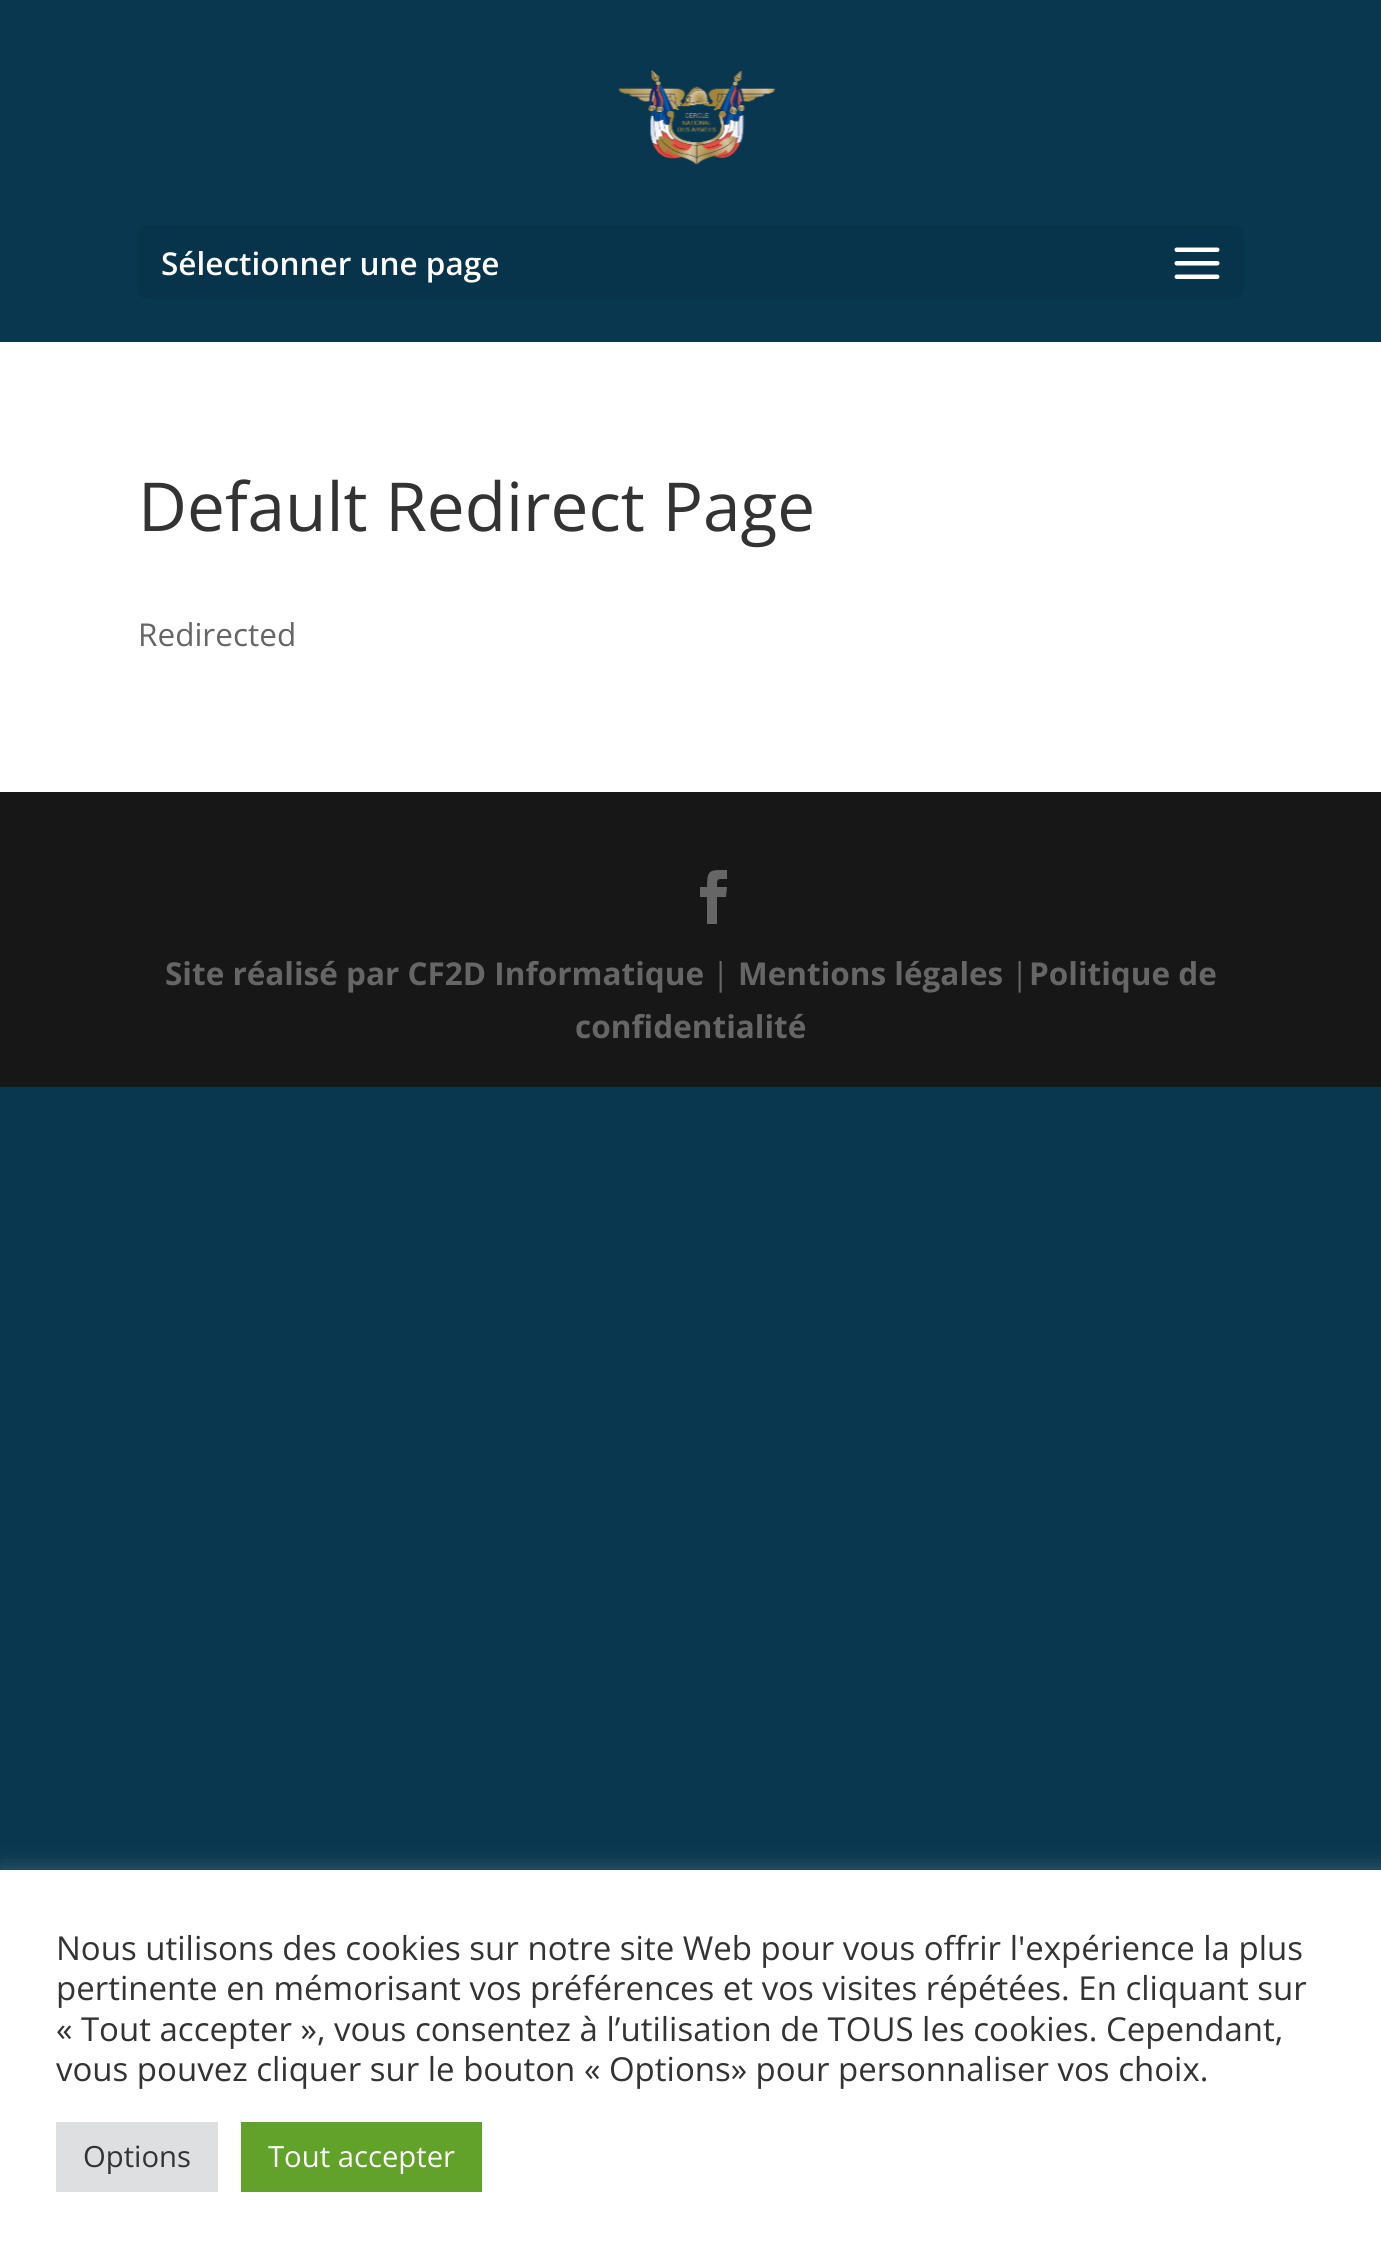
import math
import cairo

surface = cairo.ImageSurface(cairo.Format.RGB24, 1381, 2257)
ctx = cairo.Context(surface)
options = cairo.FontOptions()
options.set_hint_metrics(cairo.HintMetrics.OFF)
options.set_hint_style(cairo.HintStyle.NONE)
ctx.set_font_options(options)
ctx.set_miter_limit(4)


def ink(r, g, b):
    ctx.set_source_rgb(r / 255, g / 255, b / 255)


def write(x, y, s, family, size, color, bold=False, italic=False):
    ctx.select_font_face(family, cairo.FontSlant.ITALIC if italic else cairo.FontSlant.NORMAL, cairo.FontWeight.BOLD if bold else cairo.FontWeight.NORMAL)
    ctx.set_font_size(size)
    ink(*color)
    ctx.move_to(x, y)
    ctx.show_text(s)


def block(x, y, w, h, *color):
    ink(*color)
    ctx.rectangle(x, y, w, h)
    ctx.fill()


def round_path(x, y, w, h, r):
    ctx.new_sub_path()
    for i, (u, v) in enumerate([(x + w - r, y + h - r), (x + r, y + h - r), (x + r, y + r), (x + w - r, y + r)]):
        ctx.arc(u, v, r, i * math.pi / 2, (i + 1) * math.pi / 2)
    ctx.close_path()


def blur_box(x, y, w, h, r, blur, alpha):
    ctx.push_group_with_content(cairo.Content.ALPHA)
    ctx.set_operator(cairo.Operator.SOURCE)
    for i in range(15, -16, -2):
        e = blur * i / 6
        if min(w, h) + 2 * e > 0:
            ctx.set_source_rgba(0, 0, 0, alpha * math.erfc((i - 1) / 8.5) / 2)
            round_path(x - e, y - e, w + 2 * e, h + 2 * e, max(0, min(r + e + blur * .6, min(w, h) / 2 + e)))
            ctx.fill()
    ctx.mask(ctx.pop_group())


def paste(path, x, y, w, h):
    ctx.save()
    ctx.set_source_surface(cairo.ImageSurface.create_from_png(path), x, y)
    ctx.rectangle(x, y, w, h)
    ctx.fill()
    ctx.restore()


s1 = dict(family="Open Sans SemiBold", size=31.5, color=(255, 255, 255))
s2 = dict(family="Open Sans", size=67.5, color=(51, 51, 51))
s3 = dict(family="Open Sans", size=31.5, color=(102, 102, 102))
s4 = dict(family="Open Sans", size=31.5, color=(102, 102, 102), bold=True)
s5 = dict(family="Open Sans", size=33, color=(51, 51, 51))
s6 = dict(family="Open Sans", size=29.25, color=(51, 51, 51))
s7 = dict(family="Open Sans", size=29.25, color=(255, 255, 255))

ink(8, 55, 79)
ctx.paint()
paste("pic1.png", 618, 70, 158, 96)
ink(8, 52, 75)
round_path(137, 225, 1107, 74, 11)
ctx.fill()
write(161, 275, "Sélectionner une page", **s1)
paste("pic2.png", 1174, 247, 46, 32)
block(0, 342, 1381, 450, 255, 255, 255)
write(138, 531, "Default Redirect Page", **s2)
write(138, 646, "Redirected", **s3)
block(0, 792, 1381, 295, 23, 23, 23)
ink(102, 102, 102)
ctx.new_path()
ctx.move_to(707, 924)
ctx.line_to(717, 924)
ctx.line_to(717, 897)
ctx.line_to(726, 897)
ctx.line_to(727, 887)
ctx.line_to(717, 887)
ctx.curve_to(717, 878, 717, 879, 727, 879)
ctx.line_to(727, 870)
ctx.curve_to(710, 870, 707, 869, 707, 887)
ctx.line_to(700, 887)
ctx.line_to(700, 897)
ctx.line_to(707, 897)
ctx.close_path()
ctx.fill()
write(165, 985, "Site réalisé par CF2D Informatique", **s4)
write(712, 985, "|", **s3)
write(738, 985, "Mentions légales", **s4)
write(1011, 985, "|", **s3)
write(1029, 985, "Politique de", **s4)
write(575, 1038, "confidentialité", **s4)
ink(172, 171, 171)
blur_box(0, 1868, 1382, 389, 0, 11, 0.3)
block(0, 1870, 1381, 387, 255, 255, 255)
write(56, 1960, "Nous utilisons des cookies sur notre site Web pour vous offrir l'expérience la plus", **s5)
write(56, 2000, "pertinente en mémorisant vos préférences et vos visites répétées. En cliquant sur", **s5)
write(56, 2041, "« Tout accepter », vous consentez à l’utilisation de TOUS les cookies. Cependant,", **s5)
write(56, 2081, "vous pouvez cliquer sur le bouton", **s5)
write(584, 2081, "« Options» pour personnaliser vos choix.", **s5)
block(56, 2122, 162, 70, 222, 223, 224)
write(83, 2167, "Options", **s6)
block(241, 2122, 241, 70, 97, 162, 41)
write(268, 2167, "Tout accepter", **s7)
surface.write_to_png("screenshot.png")
